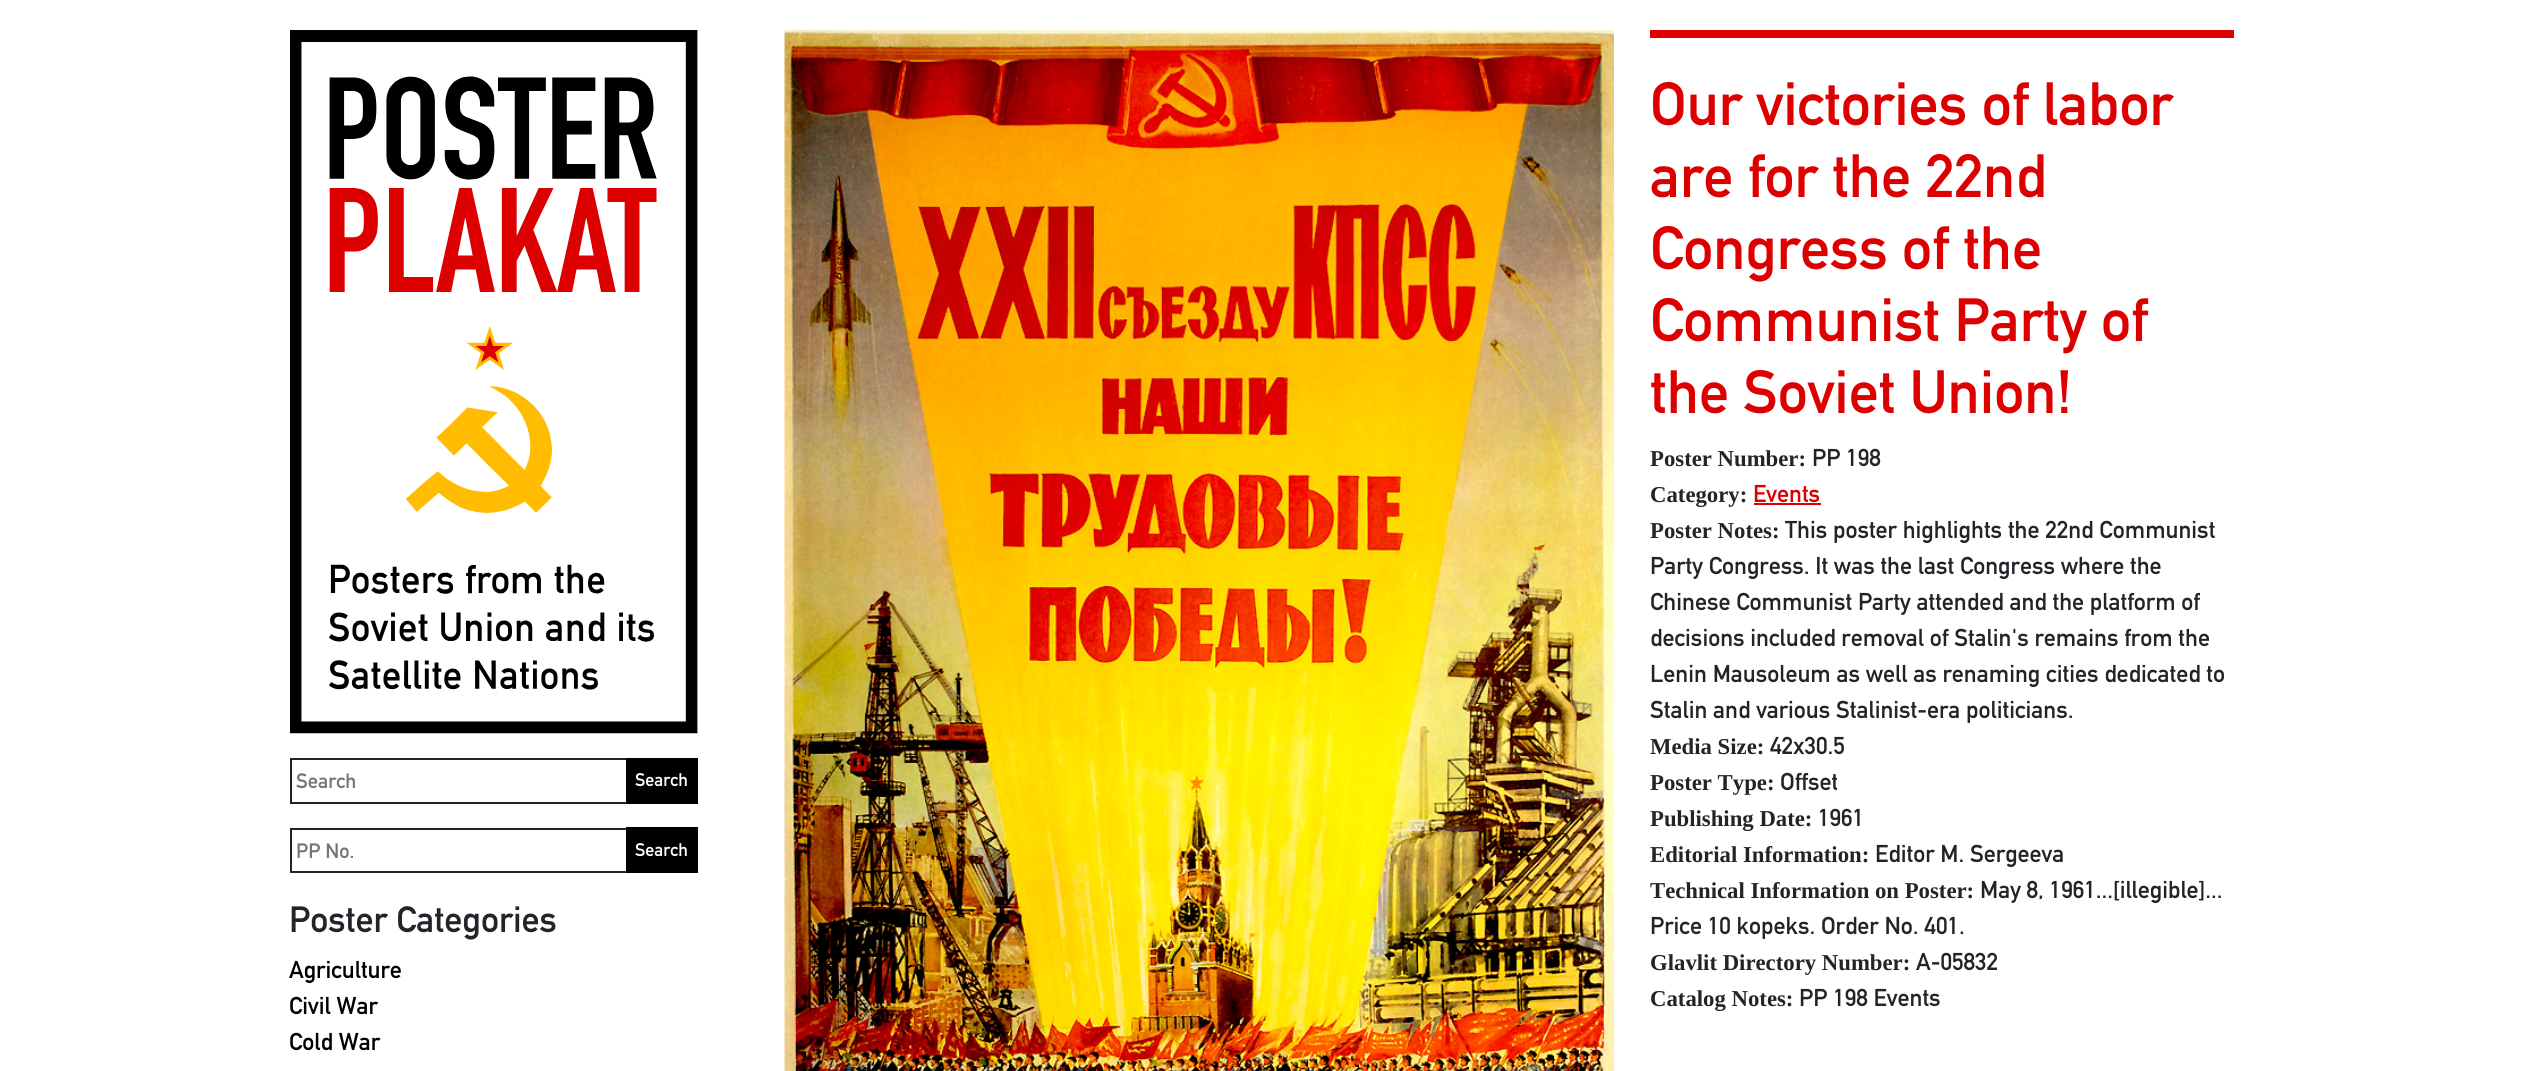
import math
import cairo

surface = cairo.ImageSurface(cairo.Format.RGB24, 2521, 1071)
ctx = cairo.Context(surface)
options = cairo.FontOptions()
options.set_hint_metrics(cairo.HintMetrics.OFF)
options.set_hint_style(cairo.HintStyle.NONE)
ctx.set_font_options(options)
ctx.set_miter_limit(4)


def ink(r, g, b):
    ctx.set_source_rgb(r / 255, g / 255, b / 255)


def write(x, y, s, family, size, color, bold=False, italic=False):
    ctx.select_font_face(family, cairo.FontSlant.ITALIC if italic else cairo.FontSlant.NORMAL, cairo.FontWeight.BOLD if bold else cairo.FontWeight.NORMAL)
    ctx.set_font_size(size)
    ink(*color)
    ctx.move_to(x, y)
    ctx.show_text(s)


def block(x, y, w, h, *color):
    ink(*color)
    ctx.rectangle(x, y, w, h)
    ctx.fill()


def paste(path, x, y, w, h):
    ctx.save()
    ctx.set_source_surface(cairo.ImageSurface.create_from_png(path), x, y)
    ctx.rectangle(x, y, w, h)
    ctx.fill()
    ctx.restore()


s1 = dict(family="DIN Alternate", size=20.5, color=(117, 117, 117), bold=True)
s2 = dict(family="DIN Alternate", size=18, color=(255, 255, 255), bold=True)
s3 = dict(family="DIN Alternate", size=36, color=(33, 37, 41), bold=True)
s4 = dict(family="DIN Alternate", size=24, color=(0, 0, 0), bold=True)
s5 = dict(family="DIN Alternate", size=60, color=(221, 0, 0), bold=True)
s6 = dict(family="Liberation Serif", size=22.75, color=(33, 37, 41), bold=True)
s7 = dict(family="DIN Alternate", size=24, color=(33, 37, 41), bold=True)
s8 = dict(family="DIN Alternate", size=24, color=(221, 0, 0), bold=True)

ink(255, 255, 255)
ctx.paint()
paste("pic1.png", 290, 30, 408, 704)
ctx.rectangle(291, 759, 406, 44)
ink(33, 37, 41)
ctx.stroke()
write(296, 788, "Search", **s1)
block(626, 758, 72, 46, 0, 0, 0)
write(635, 786, "Search", **s2)
ctx.rectangle(291, 829, 406, 43)
ink(33, 37, 41)
ctx.stroke()
write(296, 858, "PP No.", **s1)
block(626, 827, 72, 46, 0, 0, 0)
write(635, 856, "Search", **s2)
write(289, 932, "Poster Categories", **s3)
write(289, 978, "Agriculture", **s4)
write(289, 1014, "Civil War", **s4)
write(289, 1050, "Cold War", **s4)
paste("pic2.png", 784, 30, 830, 1041)
block(1650, 30, 584, 8, 221, 0, 0)
write(1650, 125, "Our victories of labor", **s5)
write(1650, 197, "are for the 22nd", **s5)
write(1650, 269, "Congress of the", **s5)
write(1650, 341, "Communist Party of", **s5)
write(1650, 413, "the Soviet Union!", **s5)
write(1650, 466, "Poster Number:", **s6)
write(1812, 466, "PP 198", **s7)
write(1650, 502, "Category:", **s6)
write(1753, 502, "Events", **s8)
block(1754, 503, 67, 2, 221, 0, 0)
write(1650, 538, "Poster Notes:", **s6)
write(1785, 538, "This poster highlights the 22nd Communist", **s7)
write(1650, 574, "Party Congress. It was the last Congress where the", **s7)
write(1650, 610, "Chinese Communist Party attended and the platform of", **s7)
write(1650, 646, "decisions included removal of Stalin's remains from the", **s7)
write(1650, 682, "Lenin Mausoleum as well as renaming cities dedicated to", **s7)
write(1650, 718, "Stalin and various Stalinist-era politicians.", **s7)
write(1650, 754, "Media Size:", **s6)
write(1770, 754, "42x30.5", **s7)
write(1650, 790, "Poster Type:", **s6)
write(1780, 790, "Offset", **s7)
write(1650, 826, "Publishing Date:", **s6)
write(1818, 826, "1961", **s7)
write(1650, 862, "Editorial Information:", **s6)
write(1875, 862, "Editor M. Sergeeva", **s7)
write(1650, 898, "Technical Information on Poster:", **s6)
write(1980, 898, "May 8, 1961...[illegible]...", **s7)
write(1650, 934, "Price 10 kopeks. Order No. 401.", **s7)
write(1650, 970, "Glavlit Directory Number:", **s6)
write(1916, 970, "A-05832", **s7)
write(1650, 1006, "Catalog Notes:", **s6)
write(1799, 1006, "PP 198 Events", **s7)
surface.write_to_png("screenshot.png")
